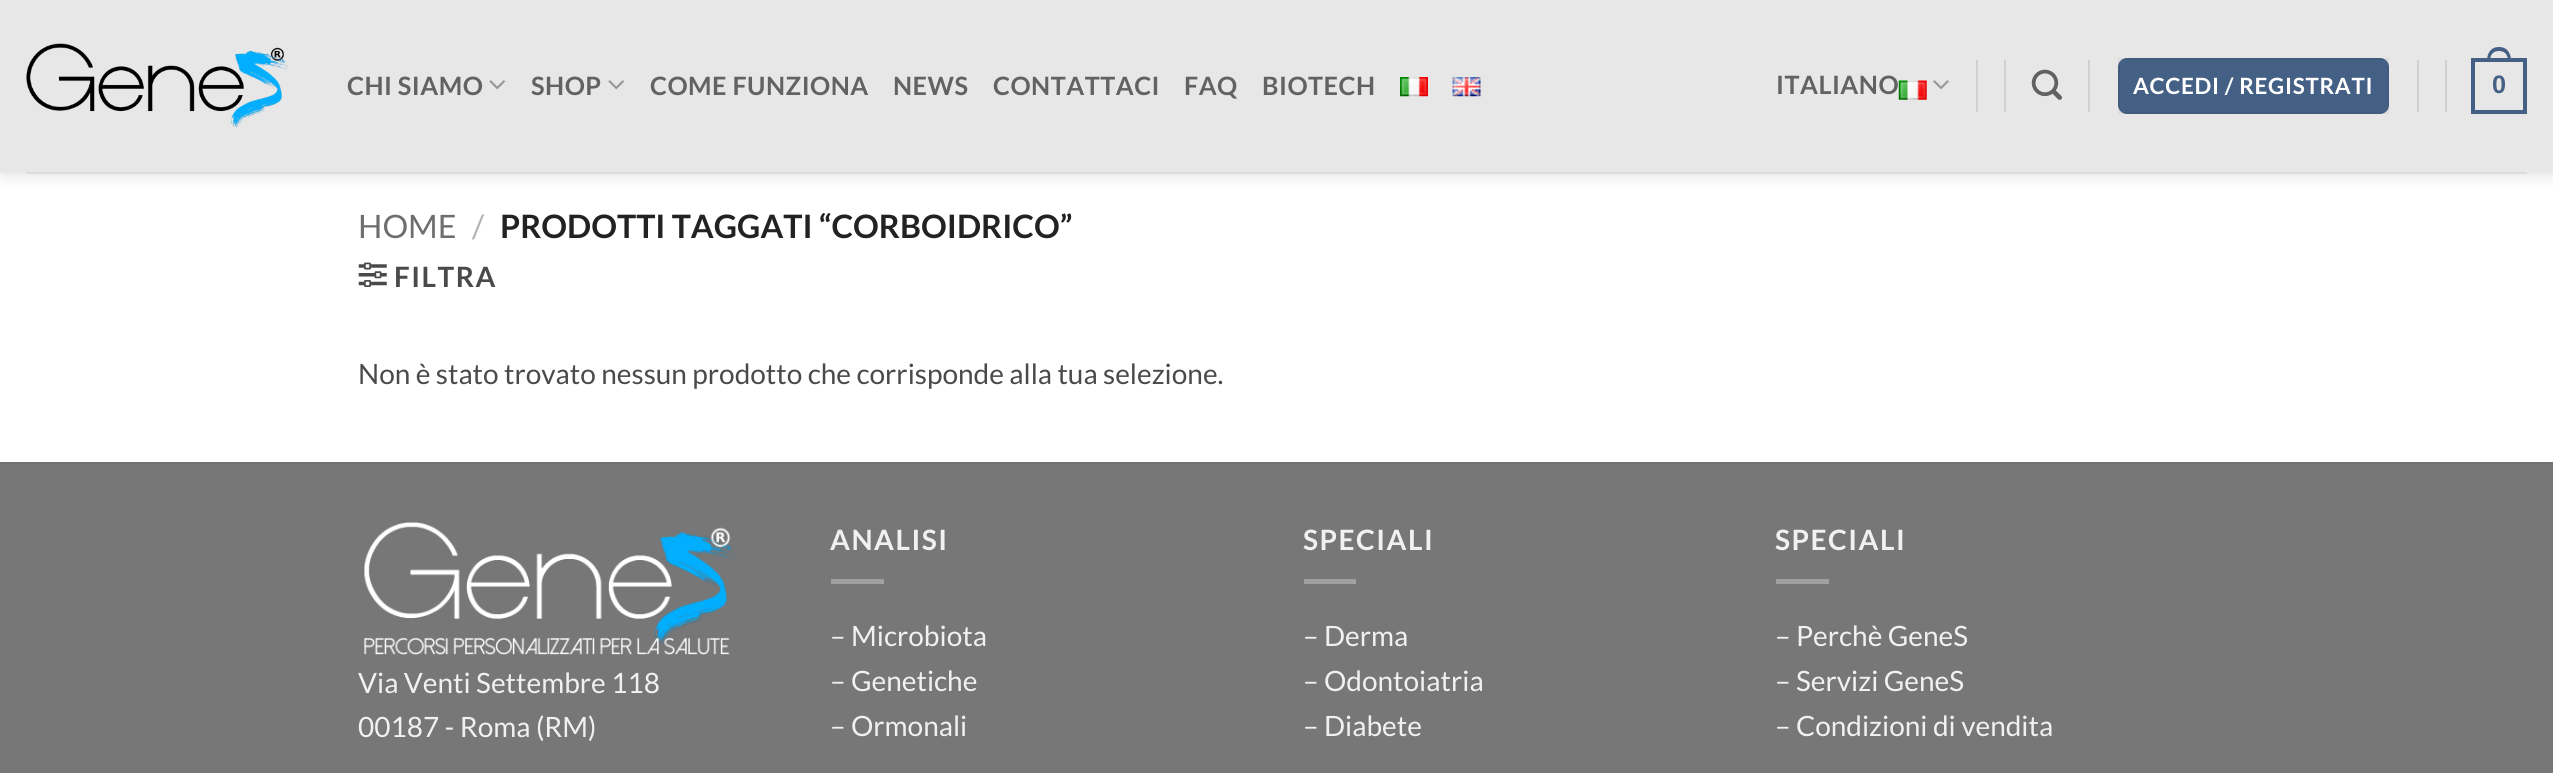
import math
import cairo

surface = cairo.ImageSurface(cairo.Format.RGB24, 2553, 773)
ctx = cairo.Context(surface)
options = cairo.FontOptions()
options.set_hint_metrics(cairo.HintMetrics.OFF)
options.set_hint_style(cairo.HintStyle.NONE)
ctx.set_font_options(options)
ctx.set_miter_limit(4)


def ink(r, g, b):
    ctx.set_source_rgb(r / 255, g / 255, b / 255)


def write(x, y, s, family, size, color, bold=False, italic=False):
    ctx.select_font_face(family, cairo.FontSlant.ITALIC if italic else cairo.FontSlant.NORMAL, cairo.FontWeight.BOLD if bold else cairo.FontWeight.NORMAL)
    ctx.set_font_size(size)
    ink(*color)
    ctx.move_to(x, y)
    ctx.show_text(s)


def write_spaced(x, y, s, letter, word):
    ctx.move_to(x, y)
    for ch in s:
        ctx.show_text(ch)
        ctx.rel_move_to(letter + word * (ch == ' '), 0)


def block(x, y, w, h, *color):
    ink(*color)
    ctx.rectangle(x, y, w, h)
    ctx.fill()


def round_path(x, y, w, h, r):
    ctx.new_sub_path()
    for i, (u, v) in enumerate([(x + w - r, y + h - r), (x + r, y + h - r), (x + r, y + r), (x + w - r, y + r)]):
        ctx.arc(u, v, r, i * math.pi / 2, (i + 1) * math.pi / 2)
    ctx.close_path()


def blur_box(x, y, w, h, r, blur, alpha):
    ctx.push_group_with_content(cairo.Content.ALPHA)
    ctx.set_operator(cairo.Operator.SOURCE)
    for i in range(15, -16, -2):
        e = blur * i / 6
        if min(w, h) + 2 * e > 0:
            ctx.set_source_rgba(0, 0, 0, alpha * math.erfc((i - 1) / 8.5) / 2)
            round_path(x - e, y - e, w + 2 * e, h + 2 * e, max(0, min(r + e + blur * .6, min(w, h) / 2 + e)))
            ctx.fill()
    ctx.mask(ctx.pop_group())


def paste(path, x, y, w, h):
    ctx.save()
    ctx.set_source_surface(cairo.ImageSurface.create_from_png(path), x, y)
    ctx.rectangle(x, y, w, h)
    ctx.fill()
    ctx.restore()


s1 = dict(family="Lato", size=32.25, color=(110, 110, 110))
s2 = dict(family="Lato", size=32.25, color=(178, 178, 178))
s3 = dict(family="Lato", size=32.25, color=(34, 34, 34), bold=True)
s4 = dict(family="Lato", size=28, color=(74, 74, 74))
s5 = dict(family="Lato", size=28, color=(241, 241, 241))

ink(255, 255, 255)
ctx.paint()
ctx.save()
ctx.set_fill_rule(cairo.FillRule.EVEN_ODD)
ctx.new_path()
ctx.move_to(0, 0)
ctx.line_to(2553, 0)
ctx.line_to(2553, 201)
ctx.line_to(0, 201)
ctx.close_path()
ctx.move_to(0, 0)
ctx.line_to(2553, 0)
ctx.line_to(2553, 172)
ctx.line_to(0, 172)
ctx.close_path()
ctx.clip()
ink(0, 0, 0)
blur_box(2, 2, 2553, 171, 0, 9, 0.15)
ctx.restore()
ctx.set_source_rgba(0.898, 0.898, 0.898, 0.9)
ctx.rectangle(0, 0, 2553, 172)
ctx.fill()
paste("pic1.png", 26, 43, 262, 85)
ctx.select_font_face("Lato", cairo.FontSlant.NORMAL, cairo.FontWeight.BOLD)
ctx.set_font_size(25.25)
ink(98, 98, 98)
write_spaced(347, 95, "CHI SIAMO", 0.5, 0)
paste("pic2.png", 489, 80, 16, 10)
write_spaced(531, 95, "SHOP", 0.5, 0)
paste("pic2.png", 608, 80, 16, 10)
write_spaced(650, 95, "COME FUNZIONA", 0.5, 0)
write_spaced(893, 95, "NEWS", 0.5, 0)
write_spaced(993, 95, "CONTATTACI", 0.5, 0)
write_spaced(1184, 95, "FAQ", 0.5, 0)
write_spaced(1262, 95, "BIOTECH", 0.5, 0)
paste("pic3.png", 1400, 77, 28, 20)
paste("pic4.png", 1452, 77, 29, 20)
write_spaced(1776, 94, "ITALIANO", 0.5, 0)
paste("pic5.png", 1898, 80, 29, 20)
paste("pic6.png", 1933, 80, 16, 10)
block(1976, 60, 2, 52, 208, 208, 208)
block(2004, 60, 2, 52, 208, 208, 208)
paste("pic7.png", 2031, 69, 31, 31)
block(2088, 60, 2, 52, 208, 208, 208)
ink(68, 96, 132)
round_path(2118, 58, 271, 56, 9)
ctx.fill()
ctx.rectangle(2119, 59, 269, 54)
ctx.set_source_rgba(0, 0, 0, 0.05)
ctx.stroke()
ctx.set_font_size(22.4)
ink(255, 255, 255)
write_spaced(2133, 94, "ACCEDI / REGISTRATI", 0.7, 0)
block(2417, 60, 2, 52, 208, 208, 208)
block(2445, 60, 2, 52, 208, 208, 208)
ctx.rectangle(2473, 60, 52, 52)
ink(68, 96, 132)
ctx.set_line_width(4)
ctx.stroke()
ctx.set_fill_rule(cairo.FillRule.EVEN_ODD)
ctx.new_path()
ctx.move_to(2499, 47)
ctx.curve_to(2507.5, 47, 2511, 53.5, 2511, 61)
ctx.line_to(2487, 61)
ctx.curve_to(2487, 53.5, 2490.5, 47, 2499, 47)
ctx.close_path()
ctx.move_to(2499, 51)
ctx.curve_to(2505.5, 51, 2508, 55.5, 2508, 61)
ctx.line_to(2490, 61)
ctx.curve_to(2490, 55.5, 2492.5, 51, 2499, 51)
ctx.close_path()
ctx.fill()
ctx.select_font_face("Liberation Sans", cairo.FontSlant.NORMAL, cairo.FontWeight.BOLD)
ctx.set_font_size(25.25)
write_spaced(2492, 93, "0", 0.5, 0)
block(26, 172, 2501, 2, 220, 220, 220)
write(358, 238, "HOME", **s1)
write(472, 238, "/", **s2)
write(500, 238, "PRODOTTI TAGGATI “CORBOIDRICO”", **s3)
paste("pic8.png", 358, 262, 29, 25)
ctx.set_font_size(28)
ink(74, 74, 74)
write_spaced(394, 287, "FILTRA", 1.5, 0)
write(358, 384, "Non è stato trovato nessun prodotto che corrisponde alla tua selezione.", **s4)
block(0, 464, 2553, 309, 119, 119, 119)
block(0, 462, 2553, 2, 113, 113, 113)
paste("pic9.png", 364, 522, 371, 133)
write(358, 693, "Via Venti Settembre 118", **s5)
write(358, 737, "00187 - Roma (RM)", **s5)
ctx.select_font_face("Lato", cairo.FontSlant.NORMAL, cairo.FontWeight.BOLD)
write_spaced(830, 550, "ANALISI", 1.5, 0)
block(831, 579, 53, 5, 160, 160, 160)
write(830, 646, "– Microbiota", **s5)
write(830, 691, "– Genetiche", **s5)
write(830, 736, "– Ormonali", **s5)
ctx.select_font_face("Lato", cairo.FontSlant.NORMAL, cairo.FontWeight.BOLD)
write_spaced(1303, 550, "SPECIALI", 1.5, 0)
block(1304, 579, 52, 5, 160, 160, 160)
write(1303, 646, "– Derma", **s5)
write(1303, 691, "– Odontoiatria", **s5)
write(1303, 736, "– Diabete", **s5)
ctx.select_font_face("Lato", cairo.FontSlant.NORMAL, cairo.FontWeight.BOLD)
write_spaced(1775, 550, "SPECIALI", 1.5, 0)
block(1776, 579, 53, 5, 160, 160, 160)
write(1775, 646, "– Perchè GeneS", **s5)
write(1775, 691, "– Servizi GeneS", **s5)
write(1775, 736, "– Condizioni di vendita", **s5)
surface.write_to_png("screenshot.png")
